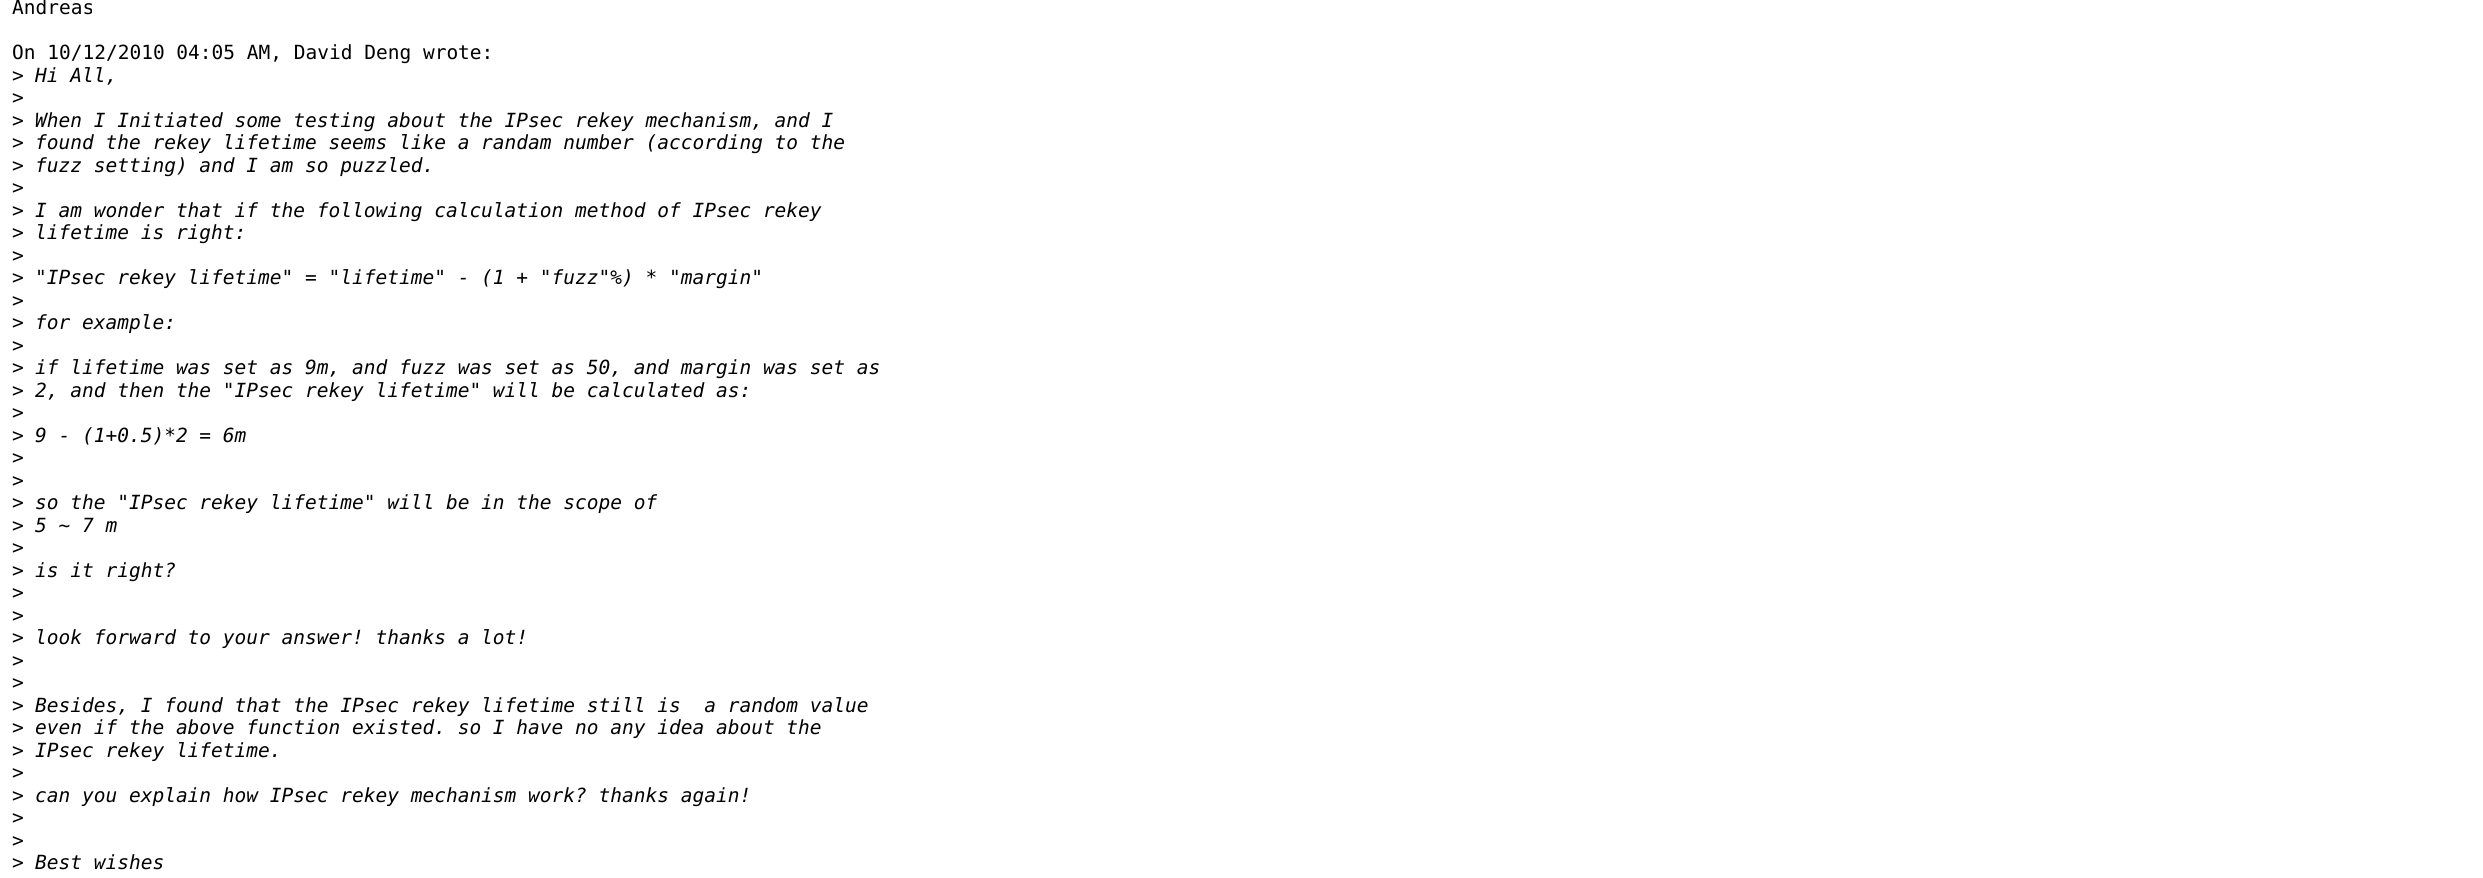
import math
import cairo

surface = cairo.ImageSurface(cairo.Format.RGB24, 2483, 878)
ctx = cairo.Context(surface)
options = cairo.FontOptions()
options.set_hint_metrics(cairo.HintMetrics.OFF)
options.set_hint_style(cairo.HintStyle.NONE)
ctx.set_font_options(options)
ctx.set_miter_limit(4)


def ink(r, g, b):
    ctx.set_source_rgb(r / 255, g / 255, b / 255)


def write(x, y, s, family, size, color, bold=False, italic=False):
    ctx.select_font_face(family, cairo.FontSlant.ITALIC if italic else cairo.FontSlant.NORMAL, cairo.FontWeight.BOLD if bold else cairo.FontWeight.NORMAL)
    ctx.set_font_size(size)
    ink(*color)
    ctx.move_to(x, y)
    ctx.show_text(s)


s1 = dict(family="DejaVu Sans Mono", size=19.5, color=(0, 0, 0))
s2 = dict(family="DejaVu Sans Mono", size=19.5, color=(0, 0, 0), italic=True)

ink(255, 255, 255)
ctx.paint()
write(12, 14, "Andreas", **s1)
write(12, 59, "On 10/12/2010 04:05 AM, David Deng wrote:", **s1)
write(12, 82, ">", **s1)
write(35, 82, "Hi All,", **s2)
write(12, 104, ">", **s1)
write(12, 127, ">", **s1)
write(35, 127, "When I Initiated some testing about the IPsec rekey mechanism, and I", **s2)
write(12, 149, ">", **s1)
write(35, 149, "found the rekey lifetime seems like a randam number (according to the", **s2)
write(12, 172, ">", **s1)
write(35, 172, "fuzz setting) and I am so puzzled.", **s2)
write(12, 194, ">", **s1)
write(12, 217, ">", **s1)
write(35, 217, "I am wonder that if the following calculation method of IPsec rekey", **s2)
write(12, 239, ">", **s1)
write(35, 239, "lifetime is right:", **s2)
write(12, 262, ">", **s1)
write(12, 284, ">", **s1)
write(35, 284, "\"IPsec rekey lifetime\" = \"lifetime\" - (1 + \"fuzz\"%) * \"margin\"", **s2)
write(12, 307, ">", **s1)
write(12, 329, ">", **s1)
write(35, 329, "for example:", **s2)
write(12, 352, ">", **s1)
write(12, 374, ">", **s1)
write(35, 374, "if lifetime was set as 9m, and fuzz was set as 50, and margin was set as", **s2)
write(12, 397, ">", **s1)
write(35, 397, "2, and then the \"IPsec rekey lifetime\" will be calculated as:", **s2)
write(12, 419, ">", **s1)
write(12, 442, ">", **s1)
write(35, 442, "9 - (1+0.5)*2 = 6m", **s2)
write(12, 464, ">", **s1)
write(12, 487, ">", **s1)
write(12, 509, ">", **s1)
write(35, 509, "so the \"IPsec rekey lifetime\" will be in the scope of", **s2)
write(12, 532, ">", **s1)
write(35, 532, "5 ~ 7 m", **s2)
write(12, 554, ">", **s1)
write(12, 577, ">", **s1)
write(35, 577, "is it right?", **s2)
write(12, 599, ">", **s1)
write(12, 622, ">", **s1)
write(12, 644, ">", **s1)
write(35, 644, "look forward to your answer! thanks a lot!", **s2)
write(12, 667, ">", **s1)
write(12, 689, ">", **s1)
write(12, 712, ">", **s1)
write(35, 712, "Besides, I found that the IPsec rekey lifetime still is  a random value", **s2)
write(12, 734, ">", **s1)
write(35, 734, "even if the above function existed. so I have no any idea about the", **s2)
write(12, 757, ">", **s1)
write(35, 757, "IPsec rekey lifetime.", **s2)
write(12, 779, ">", **s1)
write(12, 802, ">", **s1)
write(35, 802, "can you explain how IPsec rekey mechanism work? thanks again!", **s2)
write(12, 824, ">", **s1)
write(12, 847, ">", **s1)
write(12, 869, ">", **s1)
write(35, 869, "Best wishes", **s2)
surface.write_to_png("screenshot.png")
